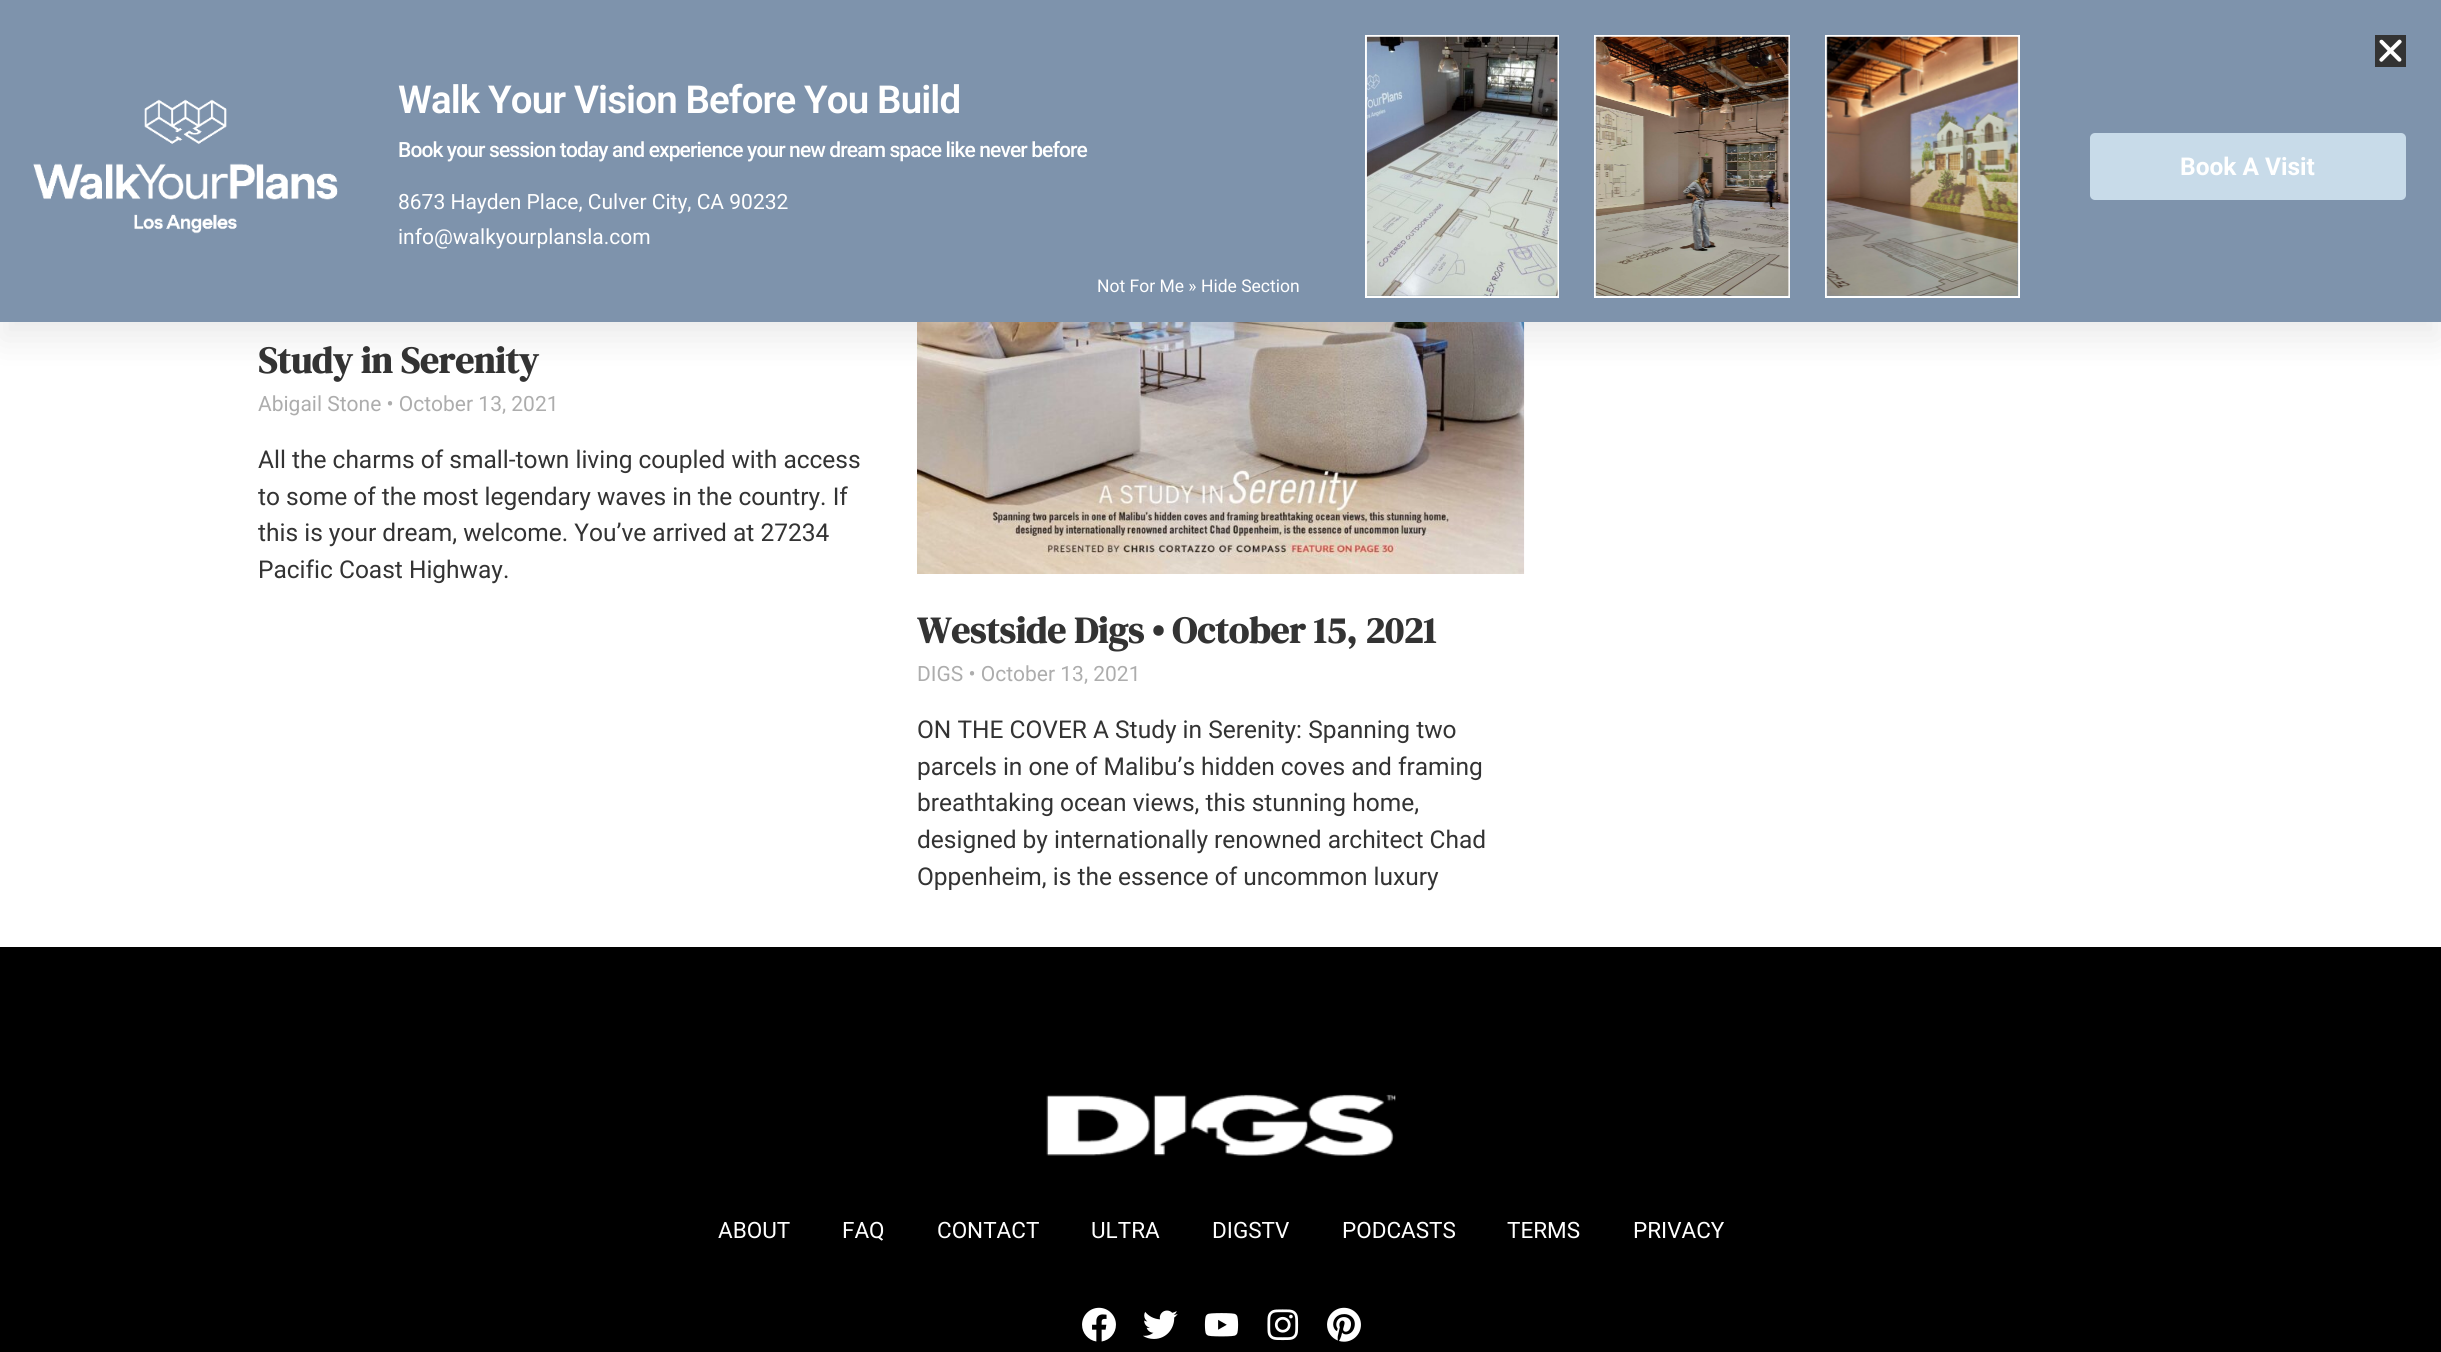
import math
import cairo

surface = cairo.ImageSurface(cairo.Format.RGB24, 2441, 1352)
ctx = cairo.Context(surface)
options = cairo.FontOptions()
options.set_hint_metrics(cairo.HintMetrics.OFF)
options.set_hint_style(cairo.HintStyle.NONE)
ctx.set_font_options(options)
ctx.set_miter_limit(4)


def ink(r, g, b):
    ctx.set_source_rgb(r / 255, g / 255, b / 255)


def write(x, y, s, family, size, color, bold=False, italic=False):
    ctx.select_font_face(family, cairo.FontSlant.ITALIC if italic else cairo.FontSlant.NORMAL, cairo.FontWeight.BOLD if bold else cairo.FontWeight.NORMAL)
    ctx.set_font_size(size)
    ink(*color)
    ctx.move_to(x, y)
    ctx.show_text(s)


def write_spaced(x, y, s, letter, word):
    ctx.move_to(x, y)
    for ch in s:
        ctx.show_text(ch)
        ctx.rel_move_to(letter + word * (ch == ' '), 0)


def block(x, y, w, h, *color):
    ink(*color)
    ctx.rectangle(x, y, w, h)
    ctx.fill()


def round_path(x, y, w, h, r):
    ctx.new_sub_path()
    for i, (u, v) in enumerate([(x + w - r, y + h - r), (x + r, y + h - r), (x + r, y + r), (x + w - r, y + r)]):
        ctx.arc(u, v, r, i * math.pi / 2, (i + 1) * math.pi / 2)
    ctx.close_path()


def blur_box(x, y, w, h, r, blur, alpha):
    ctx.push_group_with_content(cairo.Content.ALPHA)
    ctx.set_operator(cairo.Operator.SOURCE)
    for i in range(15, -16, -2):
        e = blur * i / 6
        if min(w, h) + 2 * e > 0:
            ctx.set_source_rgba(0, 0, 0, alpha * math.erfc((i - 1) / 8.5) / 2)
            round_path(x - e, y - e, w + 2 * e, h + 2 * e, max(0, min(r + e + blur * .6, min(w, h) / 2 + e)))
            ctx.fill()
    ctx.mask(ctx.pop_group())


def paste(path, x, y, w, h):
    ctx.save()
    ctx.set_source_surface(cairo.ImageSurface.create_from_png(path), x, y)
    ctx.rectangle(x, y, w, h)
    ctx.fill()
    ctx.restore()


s1 = dict(family="Roboto", size=21, color=(255, 255, 255))
s2 = dict(family="Roboto", size=24.5, color=(255, 255, 255), bold=True)
s3 = dict(family="Roboto", size=17.5, color=(255, 255, 255))
s4 = dict(family="DM Serif Display", size=37, color=(51, 51, 51), bold=True)
s5 = dict(family="Roboto", size=21, color=(173, 173, 173))
s6 = dict(family="Roboto", size=24.5, color=(51, 51, 51))
s7 = dict(family="Roboto", size=22.5, color=(255, 255, 255))

ink(255, 255, 255)
ctx.paint()
paste("pic6.png", 917, 322, 608, 252)
ink(0, 0, 0)
blur_box(0, 18, 2441, 322, 0, 17.5, 0.08)
block(0, 0, 2441, 322, 126, 147, 172)
block(2375, 35, 31, 32, 51, 51, 51)
paste("pic1.png", 2379, 39, 23, 23)
paste("pic2.png", 33, 99, 305, 135)
ctx.select_font_face("Roboto SemiBold")
ctx.set_font_size(38.5)
ink(255, 255, 255)
write_spaced(398, 113, "Walk Your Vision Before You Build", -0.88, 0)
ctx.select_font_face("Roboto Medium")
ctx.set_font_size(21)
write_spaced(398, 157, "Book your session today and experience your new dream space like never before", -0.88, 0)
write(398, 209, "8673 Hayden Place, Culver City, CA 90232", **s1)
write(398, 244, "info@walkyourplansla.com", **s1)
ctx.rectangle(1366, 36, 192, 261)
ctx.stroke()
paste("pic3.png", 1366, 36, 192, 260)
ctx.rectangle(1595, 36, 194, 261)
ctx.stroke()
paste("pic4.png", 1595, 36, 195, 260)
ctx.rectangle(1826, 36, 193, 261)
ctx.stroke()
paste("pic5.png", 1826, 36, 193, 260)
ink(200, 219, 233)
round_path(2090, 133, 316, 67, 5)
ctx.fill()
write(2180, 175, "Book A Visit", **s2)
write(1097, 292, "Not For Me » Hide Section", **s3)
write(258, 373, "Study in Serenity", **s4)
write(258, 411, "Abigail Stone • October 13, 2021", **s5)
write(258, 468, "All the charms of small-town living coupled with access", **s6)
write(258, 505, "to some of the most legendary waves in the country. If", **s6)
write(258, 541, "this is your dream, welcome. You’ve arrived at 27234", **s6)
write(258, 578, "Pacific Coast Highway.", **s6)
write(917, 643, "Westside Digs • October 15, 2021", **s4)
write(917, 681, "DIGS • October 13, 2021", **s5)
write(917, 738, "ON THE COVER A Study in Serenity: Spanning two", **s6)
write(917, 775, "parcels in one of Malibu’s hidden coves and framing", **s6)
write(917, 811, "breathtaking ocean views, this stunning home,", **s6)
write(917, 848, "designed by internationally renowned architect Chad", **s6)
write(917, 885, "Oppenheim, is the essence of uncommon luxury", **s6)
block(0, 947, 2441, 405, 0, 0, 0)
paste("pic7.png", 1046, 1094, 350, 62)
write(718, 1238, "ABOUT", **s7)
write(842, 1238, "FAQ", **s7)
write(937, 1238, "CONTACT", **s7)
write(1091, 1238, "ULTRA", **s7)
write(1212, 1238, "DIGSTV", **s7)
write(1342, 1238, "PODCASTS", **s7)
write(1507, 1238, "TERMS", **s7)
write(1633, 1238, "PRIVACY", **s7)
paste("pic8.png", 1082, 1307, 34, 35)
paste("pic9.png", 1143, 1310, 35, 29)
paste("pic10.png", 1204, 1313, 35, 24)
paste("pic11.png", 1267, 1309, 32, 32)
paste("pic12.png", 1327, 1307, 34, 35)
surface.write_to_png("screenshot.png")
